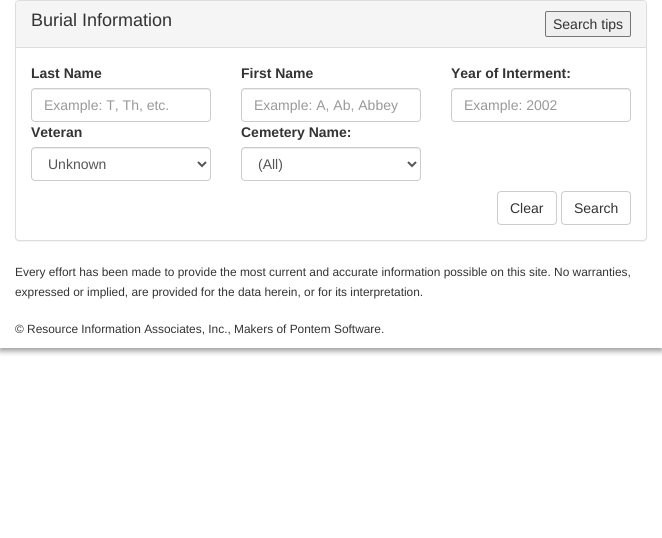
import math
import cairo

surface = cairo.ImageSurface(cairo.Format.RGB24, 662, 538)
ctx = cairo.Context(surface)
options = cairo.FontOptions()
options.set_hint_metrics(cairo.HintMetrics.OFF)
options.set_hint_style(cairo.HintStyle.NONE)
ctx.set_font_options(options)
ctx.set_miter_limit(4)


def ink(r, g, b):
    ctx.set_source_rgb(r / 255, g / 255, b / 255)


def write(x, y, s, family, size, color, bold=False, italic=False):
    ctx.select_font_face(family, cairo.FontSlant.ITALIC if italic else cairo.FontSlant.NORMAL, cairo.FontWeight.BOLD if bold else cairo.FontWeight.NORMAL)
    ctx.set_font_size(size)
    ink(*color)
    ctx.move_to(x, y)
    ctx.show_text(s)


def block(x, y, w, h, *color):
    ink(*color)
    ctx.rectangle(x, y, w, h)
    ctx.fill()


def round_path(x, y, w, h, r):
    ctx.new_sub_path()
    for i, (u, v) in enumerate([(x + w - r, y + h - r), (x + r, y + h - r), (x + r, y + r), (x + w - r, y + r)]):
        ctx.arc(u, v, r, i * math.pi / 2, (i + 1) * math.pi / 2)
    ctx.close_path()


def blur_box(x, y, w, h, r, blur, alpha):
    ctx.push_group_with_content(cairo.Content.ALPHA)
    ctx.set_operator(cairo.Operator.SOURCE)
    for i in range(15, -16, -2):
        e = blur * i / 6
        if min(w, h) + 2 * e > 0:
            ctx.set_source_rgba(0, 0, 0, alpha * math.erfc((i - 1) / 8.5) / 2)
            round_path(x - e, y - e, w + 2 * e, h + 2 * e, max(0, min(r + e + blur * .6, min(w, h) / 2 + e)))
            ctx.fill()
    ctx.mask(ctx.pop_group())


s1 = dict(family="Liberation Sans", size=18, color=(51, 51, 51))
s2 = dict(family="Liberation Sans", size=14, color=(51, 51, 51))
s3 = dict(family="Liberation Sans", size=14, color=(51, 51, 51), bold=True)
s4 = dict(family="Liberation Sans", size=14, color=(153, 153, 153))
s5 = dict(family="Liberation Sans", size=14, color=(85, 85, 85))
s6 = dict(family="Liberation Sans", size=11.9, color=(51, 51, 51))

ink(255, 255, 255)
ctx.paint()
ctx.save()
ctx.rectangle(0, 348, 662, 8)
ctx.clip()
ink(0, 0, 0)
blur_box(0, 3, 662, 348, 0, 3, 0.4)
ctx.restore()
ink(0, 0, 0)
blur_box(15, 1, 632, 241, 4, 0.5, 0.05)
ink(255, 255, 255)
round_path(15.5, 0.5, 631, 240, 3.5)
ctx.fill_preserve()
ink(221, 221, 221)
ctx.set_line_width(1)
ctx.stroke()
ink(245, 245, 245)
ctx.new_path()
ctx.move_to(19, 1)
ctx.line_to(643, 1)
ctx.curve_to(644.5, 1, 646, 2.5, 646, 4)
ctx.line_to(646, 48)
ctx.line_to(16, 48)
ctx.line_to(16, 4)
ctx.curve_to(16, 2.5, 17.5, 1, 19, 1)
ctx.close_path()
ctx.fill()
block(16, 47, 630, 1, 221, 221, 221)
write(31, 26, "Burial Information", **s1)
ink(239, 239, 239)
round_path(545.5, 11.5, 85, 25, 1.5)
ctx.fill_preserve()
ink(118, 118, 118)
ctx.stroke()
write(553, 29, "Search tips", **s2)
write(31, 78, "Last Name", **s3)
ink(236, 236, 236)
ctx.new_path()
ctx.move_to(35, 90)
ctx.line_to(207, 90)
ctx.curve_to(209, 90, 210, 91, 210, 93)
ctx.line_to(210, 92)
ctx.curve_to(210, 90, 209, 89, 207, 89)
ctx.line_to(35, 89)
ctx.curve_to(33, 89, 32, 90, 32, 92)
ctx.line_to(32, 93)
ctx.curve_to(32, 91, 33, 90, 35, 90)
ctx.close_path()
ctx.fill()
round_path(31.5, 88.5, 179, 33, 3.5)
ink(204, 204, 204)
ctx.stroke()
write(44, 110, "Example: T, Th, etc.", **s4)
write(241, 78, "First Name", **s3)
ink(236, 236, 236)
ctx.new_path()
ctx.move_to(245, 90)
ctx.line_to(417, 90)
ctx.curve_to(419, 90, 420, 91, 420, 93)
ctx.line_to(420, 92)
ctx.curve_to(420, 90, 419, 89, 417, 89)
ctx.line_to(245, 89)
ctx.curve_to(243, 89, 242, 90, 242, 92)
ctx.line_to(242, 93)
ctx.curve_to(242, 91, 243, 90, 245, 90)
ctx.close_path()
ctx.fill()
round_path(241.5, 88.5, 179, 33, 3.5)
ink(204, 204, 204)
ctx.stroke()
write(254, 110, "Example: A, Ab, Abbey", **s4)
write(451, 78, "Year of Interment:", **s3)
ink(236, 236, 236)
ctx.new_path()
ctx.move_to(455, 90)
ctx.line_to(627, 90)
ctx.curve_to(629, 90, 630, 91, 630, 93)
ctx.line_to(630, 92)
ctx.curve_to(630, 90, 629, 89, 627, 89)
ctx.line_to(455, 89)
ctx.curve_to(453, 89, 452, 90, 452, 92)
ctx.line_to(452, 93)
ctx.curve_to(452, 91, 453, 90, 455, 90)
ctx.close_path()
ctx.fill()
round_path(451.5, 88.5, 179, 33, 3.5)
ink(204, 204, 204)
ctx.stroke()
write(464, 110, "Example: 2002", **s4)
write(31, 137, "Veteran", **s3)
ink(236, 236, 236)
ctx.new_path()
ctx.move_to(35, 149)
ctx.line_to(207, 149)
ctx.curve_to(209, 149, 210, 150, 210, 152)
ctx.line_to(210, 151)
ctx.curve_to(210, 149, 209, 148, 207, 148)
ctx.line_to(35, 148)
ctx.curve_to(33, 148, 32, 149, 32, 151)
ctx.line_to(32, 152)
ctx.curve_to(32, 150, 33, 149, 35, 149)
ctx.close_path()
ctx.fill()
round_path(31.5, 147.5, 179, 33, 3.5)
ink(204, 204, 204)
ctx.stroke()
ctx.new_path()
ctx.move_to(198, 162)
ctx.line_to(202, 166)
ctx.line_to(206, 162)
ink(85, 85, 85)
ctx.set_line_width(2)
ctx.stroke()
write(48, 169, "Unknown", **s5)
write(241, 137, "Cemetery Name:", **s3)
ink(236, 236, 236)
ctx.new_path()
ctx.move_to(245, 149)
ctx.line_to(417, 149)
ctx.curve_to(419, 149, 420, 150, 420, 152)
ctx.line_to(420, 151)
ctx.curve_to(420, 149, 419, 148, 417, 148)
ctx.line_to(245, 148)
ctx.curve_to(243, 148, 242, 149, 242, 151)
ctx.line_to(242, 152)
ctx.curve_to(242, 150, 243, 149, 245, 149)
ctx.close_path()
ctx.fill()
round_path(241.5, 147.5, 179, 33, 3.5)
ink(204, 204, 204)
ctx.set_line_width(1)
ctx.stroke()
ctx.new_path()
ctx.move_to(408, 162)
ctx.line_to(412, 166)
ctx.line_to(416, 162)
ink(85, 85, 85)
ctx.set_line_width(2)
ctx.stroke()
write(258, 169, "(All)", **s5)
round_path(497.5, 191.5, 59, 33, 3.5)
ink(204, 204, 204)
ctx.set_line_width(1)
ctx.stroke()
write(510, 213, "Clear", **s2)
round_path(561.5, 191.5, 69, 33, 3.5)
ink(204, 204, 204)
ctx.stroke()
write(574, 213, "Search", **s2)
write(15, 276, "Every effort has been made to provide the most current and accurate information possible on this site. No warranties,", **s6)
write(15, 296, "expressed or implied, are provided for the data herein, or for its interpretation.", **s6)
write(15, 333, "© Resource Information Associates, Inc., Makers of Pontem Software.", **s6)
surface.write_to_png("screenshot.png")
